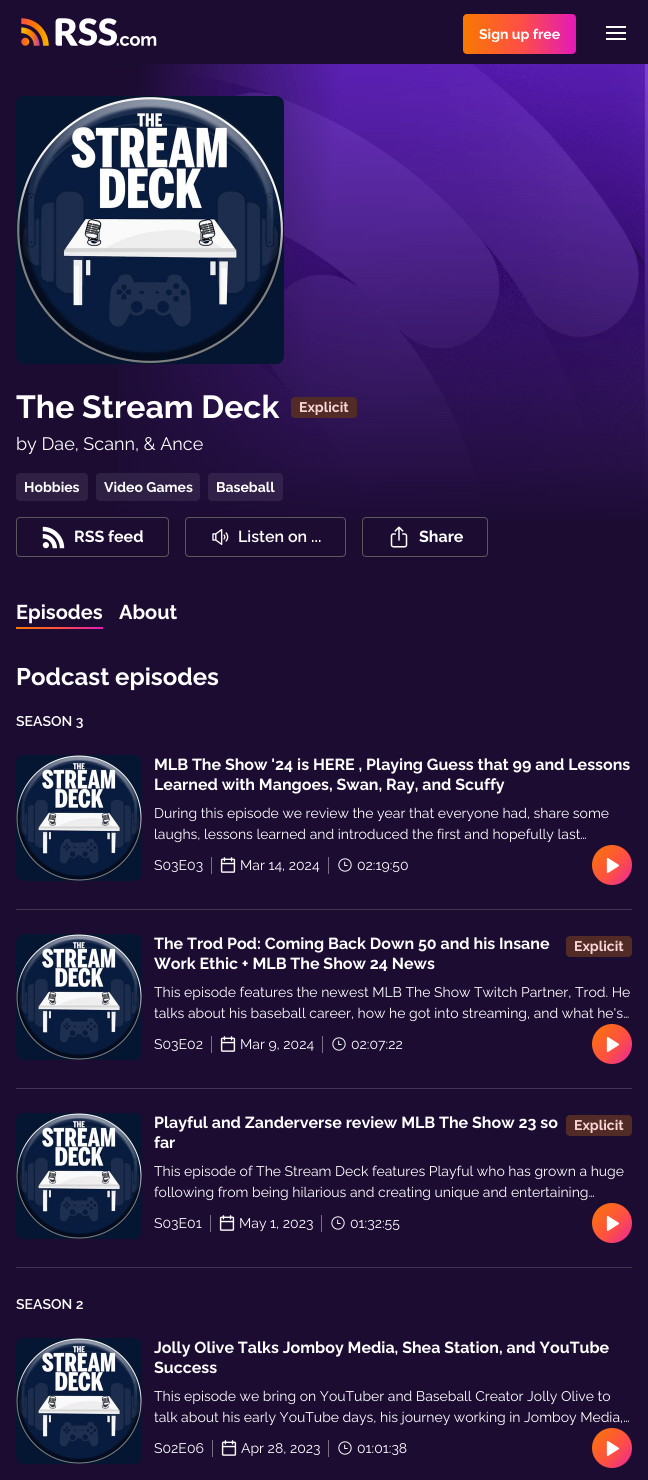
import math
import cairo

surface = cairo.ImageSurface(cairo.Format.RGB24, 648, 1480)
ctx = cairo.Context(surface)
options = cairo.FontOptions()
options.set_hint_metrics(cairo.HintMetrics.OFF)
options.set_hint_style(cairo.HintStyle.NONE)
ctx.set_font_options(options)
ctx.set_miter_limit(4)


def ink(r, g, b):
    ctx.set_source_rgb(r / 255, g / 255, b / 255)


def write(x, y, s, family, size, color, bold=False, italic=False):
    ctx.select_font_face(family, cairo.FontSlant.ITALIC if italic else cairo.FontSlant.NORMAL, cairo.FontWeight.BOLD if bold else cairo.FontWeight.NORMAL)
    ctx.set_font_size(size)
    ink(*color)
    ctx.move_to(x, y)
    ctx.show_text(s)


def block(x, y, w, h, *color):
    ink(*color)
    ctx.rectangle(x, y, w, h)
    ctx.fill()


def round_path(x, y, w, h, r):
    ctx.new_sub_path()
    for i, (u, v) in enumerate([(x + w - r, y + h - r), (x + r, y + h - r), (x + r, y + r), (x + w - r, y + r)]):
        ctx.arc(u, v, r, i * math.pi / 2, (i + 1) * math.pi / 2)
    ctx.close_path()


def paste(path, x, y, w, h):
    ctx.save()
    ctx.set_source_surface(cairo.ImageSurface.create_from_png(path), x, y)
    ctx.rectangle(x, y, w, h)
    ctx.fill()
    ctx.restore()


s1 = dict(family="Raleway Thin", size=14, color=(255, 255, 255))
s2 = dict(family="Raleway Thin", size=32, color=(255, 255, 255))
s3 = dict(family="Raleway Thin", size=14, color=(249, 215, 215))
s4 = dict(family="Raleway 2 Thin", size=18, color=(255, 255, 255))
s5 = dict(family="Raleway Thin", size=16, color=(255, 255, 255))
s6 = dict(family="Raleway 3 Thin", size=16, color=(255, 255, 255))
s7 = dict(family="Raleway Thin", size=20, color=(255, 255, 255))
s8 = dict(family="Raleway Thin", size=24, color=(255, 255, 255))
s9 = dict(family="Raleway 3 Thin", size=14, color=(255, 255, 255))
s10 = dict(family="Raleway 2 Thin", size=14, color=(255, 255, 255))

ink(28, 12, 50)
ctx.paint()
paste("pic1.png", 21, 18, 136, 28)
gradient = cairo.LinearGradient(463, 34, 576, 34)
gradient.add_color_stop_rgba(0, 0.973, 0.475, 0, 1)
gradient.add_color_stop_rgba(0.51, 0.996, 0.31, 0.271, 1)
gradient.add_color_stop_rgba(1, 0.894, 0.098, 0.729, 1)
ctx.set_source(gradient)
round_path(463, 14, 113, 40, 4)
ctx.fill()
write(479, 39, "Sign up free", **s1)
block(606, 26, 20, 2, 255, 255, 255)
block(606, 32, 20, 2, 255, 255, 255)
block(606, 38, 20, 2, 255, 255, 255)
paste("pic2.png", 117, 64, 531, 456)
paste("pic3.png", 16, 96, 268, 268)
write(16, 418, "The Stream Deck", **s2)
ink(82, 42, 38)
round_path(291, 397, 66, 21, 4)
ctx.fill()
write(299, 412, "Explicit", **s3)
write(16, 450, "by Dae, Scann, & Ance", **s4)
ink(47, 32, 67)
round_path(16, 473, 72, 28, 4)
ctx.fill()
write(24, 492, "Hobbies", **s1)
ctx.set_source_rgba(0.475, 0.439, 0.533, 0.2)
round_path(96, 473, 104, 28, 4)
ctx.fill()
write(104, 492, "Video Games", **s1)
ctx.set_source_rgba(0.475, 0.439, 0.533, 0.2)
round_path(208, 473, 75, 28, 4)
ctx.fill()
write(216, 492, "Baseball", **s1)
round_path(16.5, 517.5, 152, 39, 3.5)
ink(89, 89, 89)
ctx.set_line_width(1)
ctx.stroke()
paste("pic4.png", 42, 526, 23, 23)
write(74, 542, "RSS feed", **s5)
round_path(185.5, 517.5, 160, 39, 3.5)
ink(89, 89, 89)
ctx.stroke()
paste("pic5.png", 212, 529, 17, 16)
write(238, 542, "Listen on ...", **s6)
round_path(362.5, 517.5, 125, 39, 3.5)
ink(89, 89, 89)
ctx.stroke()
paste("pic6.png", 390, 526, 18, 22)
write(419, 542, "Share", **s5)
paste("pic7.png", 16, 627, 87, 2)
write(16, 619, "Episodes", **s7)
write(119, 619, "About", **s7)
write(16, 685, "Podcast episodes", **s8)
write(16, 726, "SEASON 3", **s9)
block(16, 909, 616, 1, 66, 54, 82)
paste("pic8.png", 16, 755, 126, 126)
write(154, 770, "MLB The Show '24 is HERE , Playing Guess that 99 and Lessons", **s5)
write(154, 790, "Learned with Mangoes, Swan, Ray, and Scuffy", **s5)
write(154, 818, "During this episode we review the year that everyone had, share some", **s10)
write(154, 839, "laughs, lessons learned and introduced the first and hopefully last…", **s10)
write(154, 870, "S03E03", **s10)
block(211, 857, 1, 17, 121, 112, 136)
paste("pic9.png", 220, 857, 16, 16)
write(240, 870, "Mar 14, 2024", **s10)
block(328, 857, 1, 17, 121, 112, 136)
paste("pic10.png", 338, 858, 14, 14)
write(357, 870, "02:19:50", **s10)
paste("pic11.png", 592, 845, 40, 40)
block(16, 1088, 616, 1, 66, 54, 82)
paste("pic8.png", 16, 934, 126, 126)
write(154, 949, "The Trod Pod: Coming Back Down 50 and his Insane", **s5)
write(154, 969, "Work Ethic + MLB The Show 24 News", **s5)
ink(82, 42, 38)
round_path(566, 936, 66, 21, 4)
ctx.fill()
write(574, 951, "Explicit", **s3)
write(154, 997, "This episode features the newest MLB The Show Twitch Partner, Trod. He", **s10)
write(154, 1018, "talks about his baseball career, how he got into streaming, and what he's…", **s10)
write(154, 1049, "S03E02", **s10)
block(211, 1036, 1, 17, 121, 112, 136)
paste("pic9.png", 220, 1036, 16, 16)
write(240, 1049, "Mar 9, 2024", **s10)
block(322, 1036, 1, 17, 121, 112, 136)
paste("pic10.png", 332, 1037, 14, 14)
write(351, 1049, "02:07:22", **s10)
paste("pic11.png", 592, 1024, 40, 40)
block(16, 1267, 616, 1, 66, 54, 82)
paste("pic8.png", 16, 1113, 126, 126)
write(154, 1128, "Playful and Zanderverse review MLB The Show 23 so", **s5)
write(154, 1148, "far", **s5)
ink(82, 42, 38)
round_path(566, 1115, 66, 21, 4)
ctx.fill()
write(574, 1130, "Explicit", **s3)
write(154, 1176, "This episode of The Stream Deck features Playful who has grown a huge", **s10)
write(154, 1197, "following from being hilarious and creating unique and entertaining…", **s10)
write(154, 1228, "S03E01", **s10)
block(210, 1215, 1, 17, 121, 112, 136)
paste("pic9.png", 219, 1215, 16, 16)
write(239, 1228, "May 1, 2023", **s10)
block(321, 1215, 1, 17, 121, 112, 136)
paste("pic10.png", 331, 1216, 14, 14)
write(350, 1228, "01:32:55", **s10)
paste("pic11.png", 592, 1203, 40, 40)
write(16, 1309, "SEASON 2", **s9)
paste("pic8.png", 16, 1338, 126, 126)
write(154, 1353, "Jolly Olive Talks Jomboy Media, Shea Station, and YouTube", **s5)
write(154, 1373, "Success", **s5)
write(154, 1401, "This episode we bring on YouTuber and Baseball Creator Jolly Olive to", **s10)
write(154, 1422, "talk about his early YouTube days, his journey working in Jomboy Media,…", **s10)
write(154, 1453, "S02E06", **s10)
block(212, 1440, 1, 17, 121, 112, 136)
paste("pic9.png", 221, 1440, 16, 16)
write(241, 1453, "Apr 28, 2023", **s10)
block(328, 1440, 1, 17, 121, 112, 136)
paste("pic10.png", 338, 1441, 14, 14)
write(357, 1453, "01:01:38", **s10)
paste("pic11.png", 592, 1428, 40, 40)
surface.write_to_png("screenshot.png")
